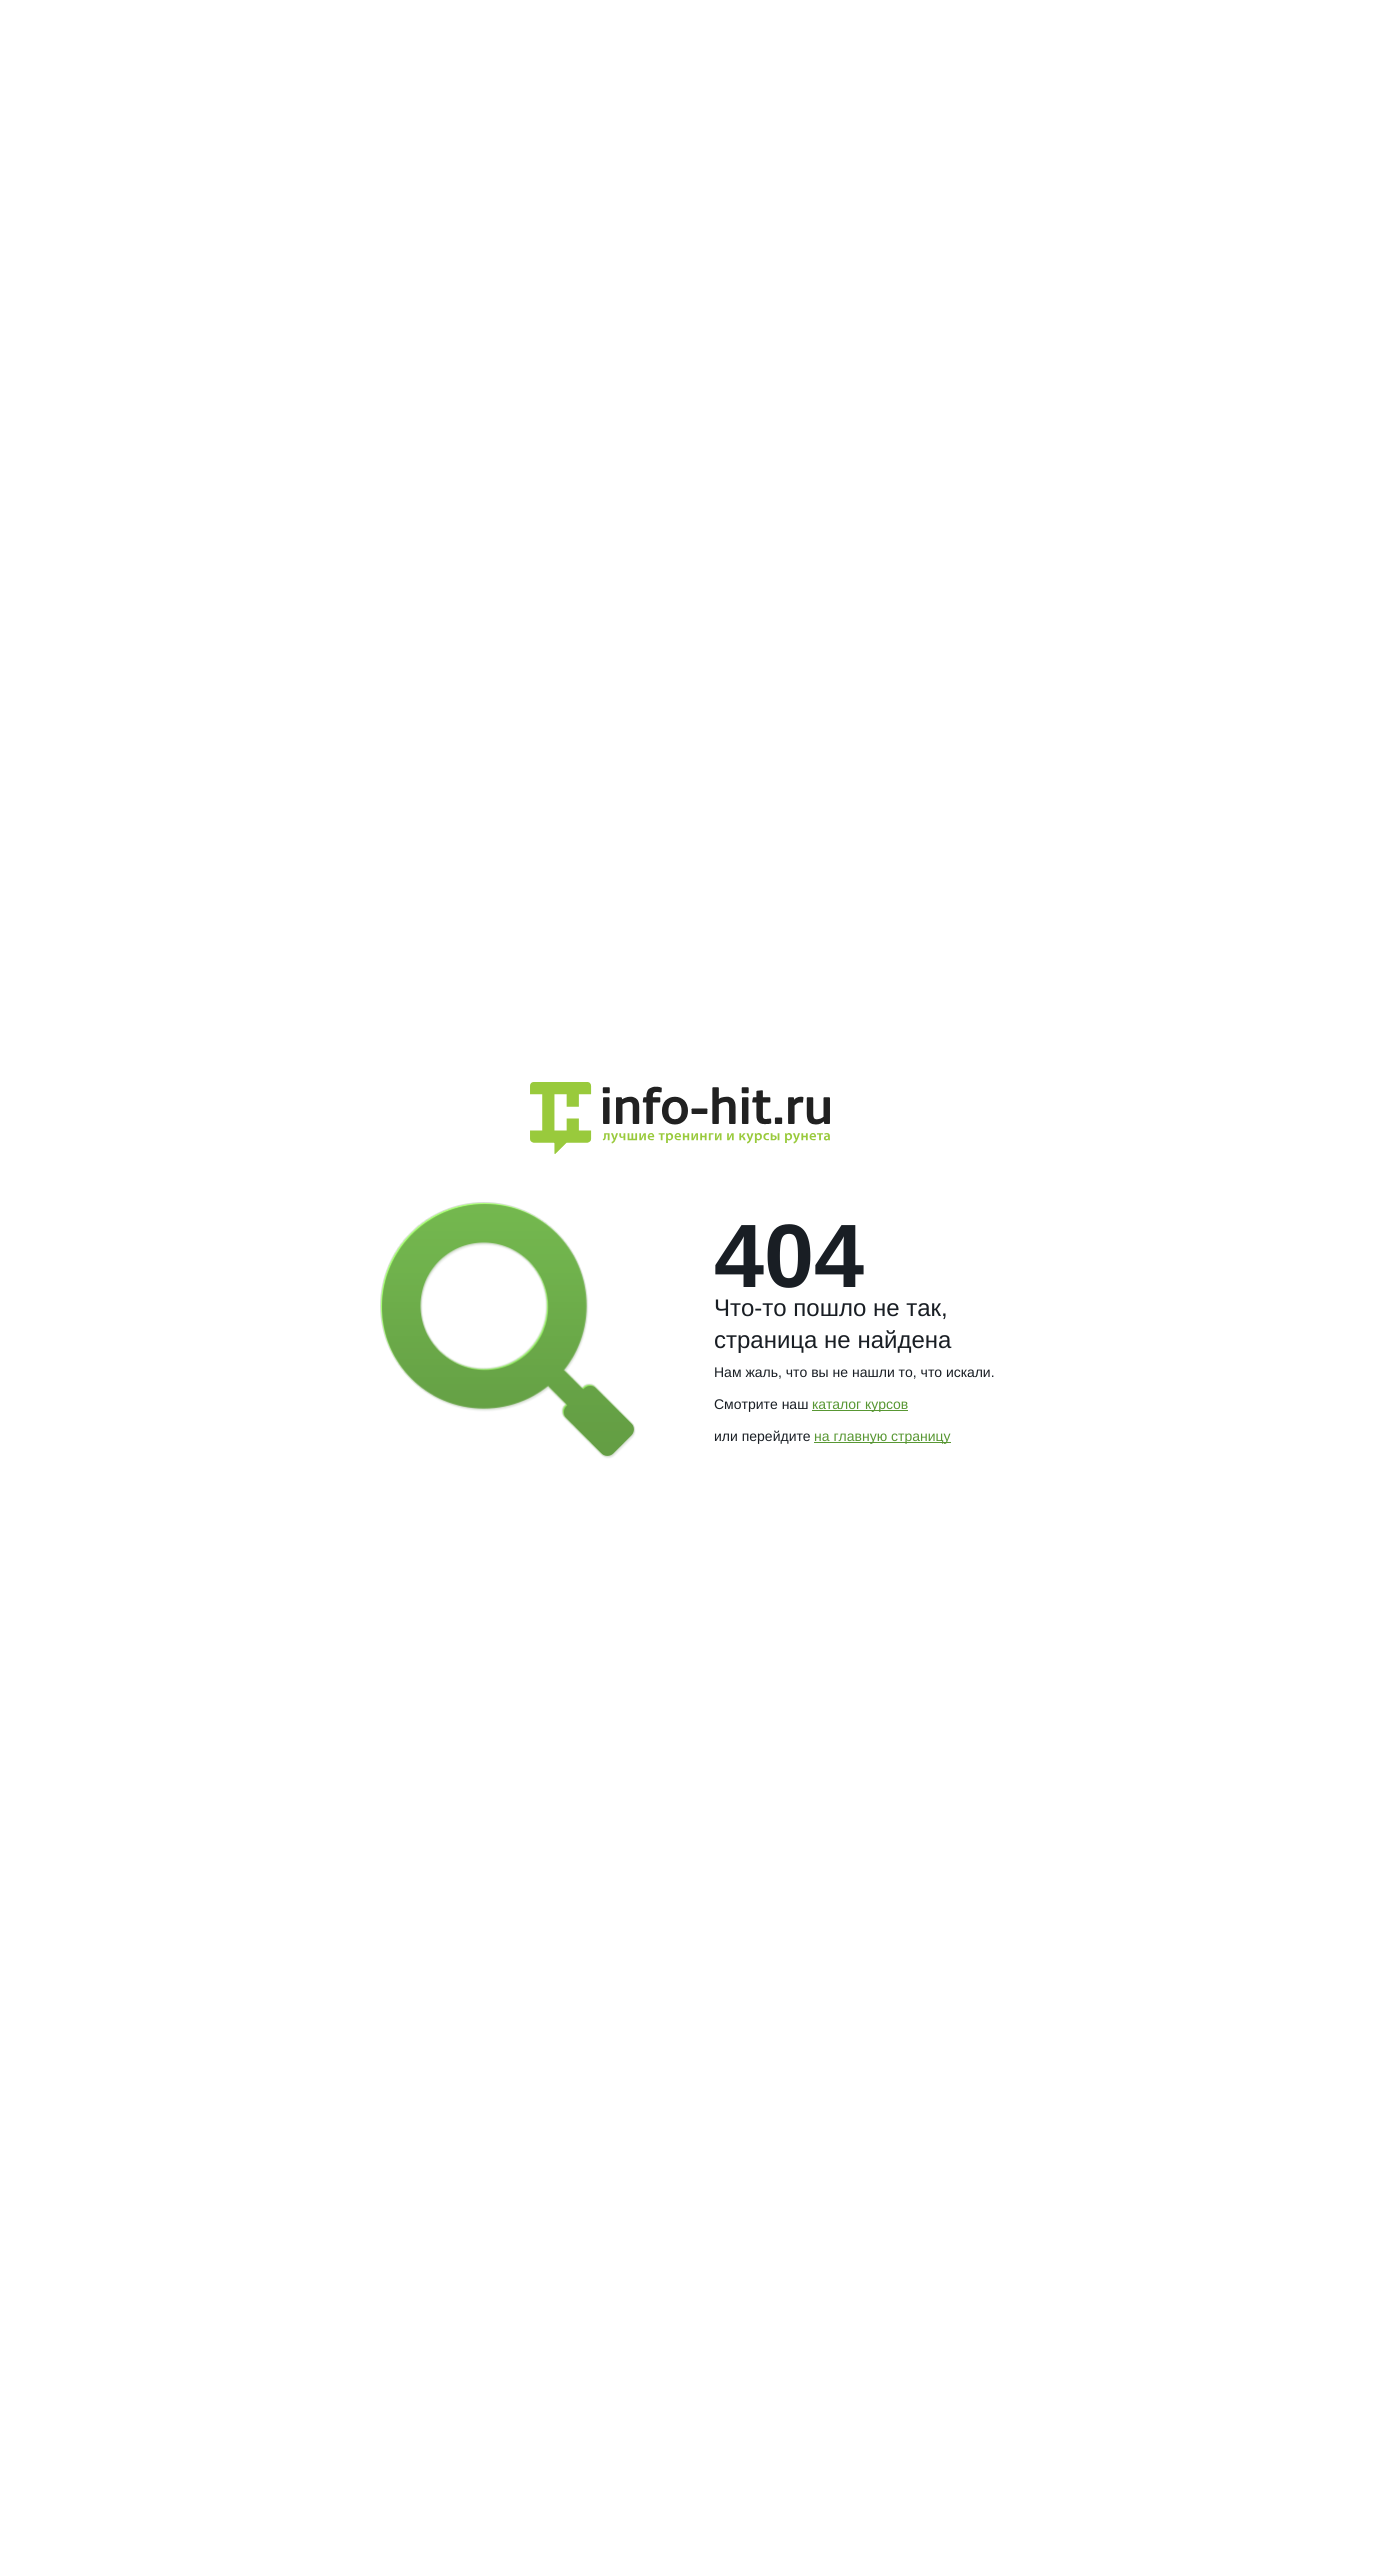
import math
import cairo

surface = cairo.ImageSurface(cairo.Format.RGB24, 1389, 2573)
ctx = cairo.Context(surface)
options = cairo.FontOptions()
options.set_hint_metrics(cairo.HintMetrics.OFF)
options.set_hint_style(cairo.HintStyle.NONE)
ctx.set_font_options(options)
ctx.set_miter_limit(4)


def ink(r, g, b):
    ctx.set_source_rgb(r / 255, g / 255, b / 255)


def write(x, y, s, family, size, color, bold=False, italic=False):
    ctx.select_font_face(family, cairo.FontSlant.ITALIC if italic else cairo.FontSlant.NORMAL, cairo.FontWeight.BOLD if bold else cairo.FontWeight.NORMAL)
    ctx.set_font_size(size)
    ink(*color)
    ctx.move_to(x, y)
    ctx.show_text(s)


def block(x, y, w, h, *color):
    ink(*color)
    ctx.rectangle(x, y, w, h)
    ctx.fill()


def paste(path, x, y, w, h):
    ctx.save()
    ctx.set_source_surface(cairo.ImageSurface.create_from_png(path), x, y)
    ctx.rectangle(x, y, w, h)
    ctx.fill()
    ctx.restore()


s1 = dict(family="Liberation Sans", size=90, color=(25, 30, 36), bold=True)
s2 = dict(family="Liberation Sans", size=24, color=(25, 30, 36))
s3 = dict(family="Liberation Sans", size=14, color=(25, 30, 36))
s4 = dict(family="Liberation Sans", size=14, color=(88, 151, 51))

ink(255, 255, 255)
ctx.paint()
paste("pic1.png", 530, 1082, 300, 72)
paste("pic2.png", 380, 1202, 256, 257)
write(714, 1287, "404", **s1)
write(714, 1316, "Что-то пошло не так,", **s2)
write(714, 1348, "страница не найдена", **s2)
write(714, 1377, "Нам жаль, что вы не нашли то, что искали.", **s3)
write(714, 1409, "Смотрите наш", **s3)
block(812, 1410, 96, 1, 88, 151, 51)
write(812, 1409, "каталог курсов", **s4)
write(714, 1441, "или перейдите", **s3)
block(814, 1442, 137, 1, 88, 151, 51)
write(814, 1441, "на главную страницу", **s4)
surface.write_to_png("screenshot.png")
